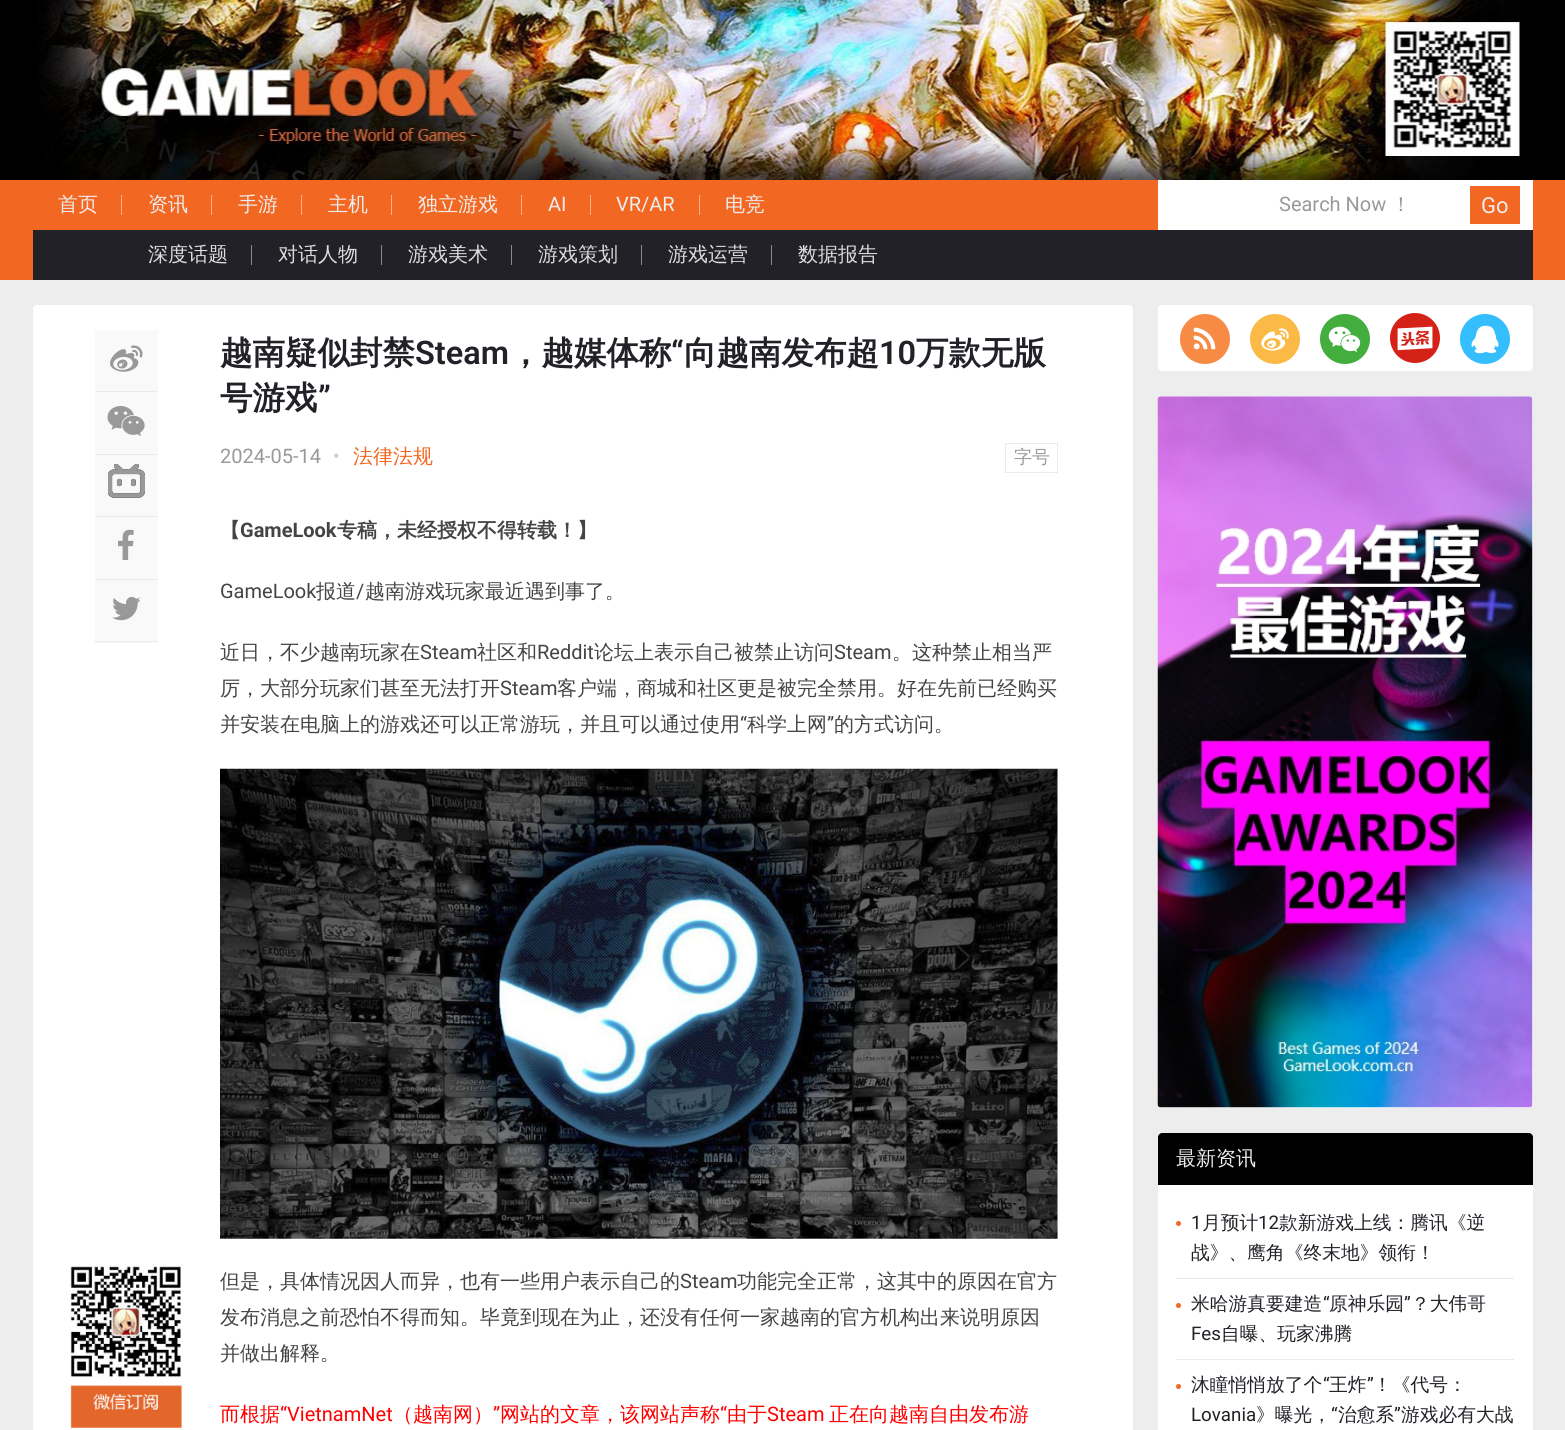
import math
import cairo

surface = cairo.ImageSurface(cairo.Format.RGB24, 1565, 1430)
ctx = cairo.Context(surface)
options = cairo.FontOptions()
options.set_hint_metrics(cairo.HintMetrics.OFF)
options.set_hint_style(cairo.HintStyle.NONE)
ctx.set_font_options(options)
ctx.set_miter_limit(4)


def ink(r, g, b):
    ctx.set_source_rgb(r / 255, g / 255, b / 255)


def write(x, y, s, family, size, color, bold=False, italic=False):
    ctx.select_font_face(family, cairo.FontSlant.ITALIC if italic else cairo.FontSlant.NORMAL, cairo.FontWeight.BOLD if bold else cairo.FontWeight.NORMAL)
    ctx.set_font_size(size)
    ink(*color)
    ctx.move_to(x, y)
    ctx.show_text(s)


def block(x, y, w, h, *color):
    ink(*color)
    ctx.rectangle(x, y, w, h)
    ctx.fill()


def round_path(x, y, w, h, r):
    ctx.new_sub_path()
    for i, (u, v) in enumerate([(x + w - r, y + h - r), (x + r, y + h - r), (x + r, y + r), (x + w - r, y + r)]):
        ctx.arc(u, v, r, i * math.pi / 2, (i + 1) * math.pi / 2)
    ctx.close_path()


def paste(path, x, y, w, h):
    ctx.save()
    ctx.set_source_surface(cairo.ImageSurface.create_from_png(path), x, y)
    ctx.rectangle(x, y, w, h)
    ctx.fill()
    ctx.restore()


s1 = dict(family="WenQuanYi Zen Hei Medium", size=20, color=(237, 237, 237))
s2 = dict(family="Roboto", size=20, color=(237, 237, 237))
s3 = dict(family="Roboto", size=20, color=(153, 153, 153))
s4 = dict(family="WenQuanYi Zen Hei Medium", size=20, color=(153, 153, 153))
s5 = dict(family="Roboto", size=22, color=(237, 237, 237))
s6 = dict(family="WenQuanYi Zen Hei Medium", size=20, color=(221, 221, 221))
s7 = dict(family="WenQuanYi Zen Hei", size=32.5, color=(35, 33, 40), bold=True)
s8 = dict(family="Roboto SemiBold", size=32.5, color=(35, 33, 40))
s9 = dict(family="Roboto", size=20, color=(204, 204, 204))
s10 = dict(family="WenQuanYi Zen Hei Medium", size=20, color=(242, 103, 34))
s11 = dict(family="WenQuanYi Zen Hei Medium", size=18, color=(153, 153, 153))
s12 = dict(family="WenQuanYi Zen Hei", size=20, color=(68, 68, 68), bold=True)
s13 = dict(family="Roboto", size=20, color=(68, 68, 68), bold=True)
s14 = dict(family="Roboto", size=20, color=(68, 68, 68))
s15 = dict(family="WenQuanYi Zen Hei Medium", size=20, color=(68, 68, 68))
s16 = dict(family="WenQuanYi Zen Hei Medium", size=20, color=(255, 0, 0))
s17 = dict(family="Roboto", size=20, color=(255, 0, 0))
s18 = dict(family="Roboto", size=18.75, color=(35, 33, 40))
s19 = dict(family="WenQuanYi Zen Hei Medium", size=18.75, color=(35, 33, 40))

ink(237, 237, 237)
ctx.paint()
block(0, 0, 1565, 180, 0, 0, 0)
paste("pic1.png", 38, 0, 1483, 180)
block(0, 180, 1565, 100, 242, 103, 34)
write(58, 211, "首页", **s1)
block(121, 195, 1, 20, 255, 175, 138)
write(148, 211, "资讯", **s1)
block(211, 195, 1, 20, 255, 175, 138)
write(238, 211, "手游", **s1)
block(301, 195, 1, 20, 255, 175, 138)
write(328, 211, "主机", **s1)
block(391, 195, 1, 20, 255, 175, 138)
write(418, 211, "独立游戏", **s1)
block(521, 195, 1, 20, 255, 175, 138)
write(548, 211, "AI", **s2)
block(590, 195, 1, 20, 255, 175, 138)
write(616, 211, "VR/AR", **s2)
block(699, 195, 1, 20, 255, 175, 138)
write(725, 211, "电竞", **s1)
block(1158, 180, 375, 50, 255, 255, 255)
write(1279, 211, "Search Now", **s3)
write(1391, 211, "！", **s4)
block(1470, 186, 50, 38, 242, 103, 34)
write(1481, 213, "Go", **s5)
block(33, 230, 1500, 50, 35, 33, 40)
write(148, 261, "深度话题", **s6)
block(251, 245, 1, 20, 136, 136, 136)
write(278, 261, "对话人物", **s6)
block(381, 245, 1, 20, 136, 136, 136)
write(408, 261, "游戏美术", **s6)
block(511, 245, 1, 20, 136, 136, 136)
write(538, 261, "游戏策划", **s6)
block(641, 245, 1, 20, 136, 136, 136)
write(668, 261, "游戏运营", **s6)
block(771, 245, 1, 20, 136, 136, 136)
write(798, 261, "数据报告", **s6)
ink(255, 255, 255)
round_path(33, 305, 1100, 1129, 4)
ctx.fill()
block(95, 330, 63, 124, 249, 249, 249)
block(95, 391, 63, 1, 234, 234, 234)
paste("pic2.png", 110, 345, 33, 27)
block(95, 454, 63, 1, 234, 234, 234)
paste("pic3.png", 107, 406, 38, 30)
block(95, 455, 63, 124, 249, 249, 249)
block(95, 516, 63, 1, 234, 234, 234)
paste("pic4.png", 108, 464, 37, 34)
paste("pic5.png", 108, 464, 37, 34)
block(95, 579, 63, 1, 234, 234, 234)
paste("pic6.png", 118, 529, 16, 31)
block(95, 580, 63, 63, 249, 249, 249)
block(95, 641, 63, 1, 234, 234, 234)
paste("pic7.png", 112, 597, 29, 24)
paste("pic8.png", 70, 1264, 113, 166)
write(220, 364, "越南疑似封禁", **s7)
write(415, 364, "Steam", **s8)
write(509, 364, "，越媒体称", **s7)
write(671, 364, "“", **s8)
write(684, 364, "向越南发布超", **s7)
write(879, 364, "10", **s8)
write(916, 364, "万款无版", **s7)
write(220, 409, "号游戏", **s7)
write(318, 409, "”", **s8)
write(220, 463, "2024-05-14", **s3)
write(333, 463, "•", **s9)
write(353, 463, "法律法规", **s10)
ctx.rectangle(1005.5, 443.5, 52, 29)
ink(234, 234, 234)
ctx.set_line_width(1)
ctx.stroke()
write(1014, 463, "字号", **s11)
write(220, 537, "【", **s12)
write(240, 537, "GameLook", **s13)
write(337, 537, "专稿，未经授权不得转载！】", **s12)
write(220, 598, "GameLook", **s14)
write(316, 598, "报道", **s15)
write(356, 598, "/", **s14)
write(365, 598, "越南游戏玩家最近遇到事了。", **s15)
write(220, 659, "近日，不少越南玩家在", **s15)
write(420, 659, "Steam", **s14)
write(477, 659, "社区和", **s15)
write(537, 659, "Reddit", **s14)
write(594, 659, "论坛上表示自己被禁止访问", **s15)
write(834, 659, "Steam", **s14)
write(892, 659, "。这种禁止相当严", **s15)
write(220, 695, "厉，大部分玩家们甚至无法打开", **s15)
write(500, 695, "Steam", **s14)
write(557, 695, "客户端，商城和社区更是被完全禁用。好在先前已经购买", **s15)
write(220, 731, "并安装在电脑上的游戏还可以正常游玩，并且可以通过使用", **s15)
write(740, 731, "“", **s14)
write(747, 731, "科学上网", **s15)
write(827, 731, "”", **s14)
write(834, 731, "的方式访问。", **s15)
paste("pic9.png", 220, 768, 838, 471)
write(220, 1288, "但是，具体情况因人而异，也有一些用户表示自己的", **s15)
write(680, 1288, "Steam", **s14)
write(737, 1288, "功能完全正常，这其中的原因在官方", **s15)
write(220, 1324, "发布消息之前恐怕不得而知。毕竟到现在为止，还没有任何一家越南的官方机构出来说明原因", **s15)
write(220, 1360, "并做出解释。", **s15)
write(220, 1421, "而根据", **s16)
write(280, 1421, "“VietnamNet", **s17)
write(393, 1421, "（越南网）", **s16)
write(493, 1421, "”", **s17)
write(500, 1421, "网站的文章，该网站声称", **s16)
write(720, 1421, "“", **s17)
write(727, 1421, "由于", **s16)
write(767, 1421, "Steam", **s17)
write(829, 1421, "正在向越南自由发布游", **s16)
ink(255, 255, 255)
round_path(1158, 305, 375, 66, 4)
ctx.fill()
ink(247, 139, 70)
ctx.arc(1205, 339, 25, 0, 2 * math.pi)
ctx.fill()
paste("pic10.png", 1193, 327, 23, 23)
ink(251, 185, 70)
ctx.arc(1275, 339, 25, 0, 2 * math.pi)
ctx.fill()
paste("pic11.png", 1261, 328, 28, 23)
ink(67, 173, 62)
ctx.arc(1345, 339, 25, 0, 2 * math.pi)
ctx.fill()
paste("pic12.png", 1328, 326, 33, 27)
ink(213, 34, 25)
ctx.arc(1415, 338, 25, 0, 2 * math.pi)
ctx.fill()
paste("pic13.png", 1397, 326, 36, 25)
ink(53, 190, 253)
ctx.arc(1485, 339, 25, 0, 2 * math.pi)
ctx.fill()
paste("pic14.png", 1471, 325, 28, 29)
ink(255, 255, 255)
round_path(1158, 396, 375, 712, 4)
ctx.fill()
paste("pic15.png", 1157, 396, 376, 712)
round_path(1158, 1133, 375, 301, 4)
ctx.fill()
ink(0, 0, 0)
ctx.new_path()
ctx.move_to(1162, 1133)
ctx.line_to(1529, 1133)
ctx.curve_to(1531, 1133, 1533, 1135, 1533, 1137)
ctx.line_to(1533, 1185)
ctx.line_to(1158, 1185)
ctx.line_to(1158, 1137)
ctx.curve_to(1158, 1135, 1160, 1133, 1162, 1133)
ctx.close_path()
ctx.fill()
write(1176, 1165, "最新资讯", **s1)
block(1176, 1278, 338, 1, 234, 234, 234)
ink(242, 103, 34)
ctx.new_path()
ctx.arc(1178.5, 1223.5, 2.5, 0, 2 * math.pi)
ctx.fill()
write(1191, 1229, "1", **s18)
write(1202, 1229, "月预计", **s19)
write(1258, 1229, "12", **s18)
write(1279, 1229, "款新游戏上线：腾讯《逆", **s19)
write(1191, 1259, "战》、鹰角《终末地》领衔！", **s19)
block(1176, 1359, 338, 1, 234, 234, 234)
write(1191, 1310, "米哈游真要建造", **s19)
write(1323, 1310, "“", **s18)
write(1329, 1310, "原神乐园", **s19)
write(1404, 1310, "”", **s18)
write(1411, 1310, "？大伟哥", **s19)
ink(242, 103, 34)
ctx.new_path()
ctx.arc(1178.5, 1305.5, 2.5, 0, 2 * math.pi)
ctx.fill()
write(1191, 1340, "Fes", **s18)
write(1221, 1340, "自曝、玩家沸腾", **s19)
write(1191, 1391, "沐瞳悄悄放了个", **s19)
write(1323, 1391, "“", **s18)
write(1329, 1391, "王炸", **s19)
write(1367, 1391, "”", **s18)
write(1373, 1391, "！《代号：", **s19)
ink(242, 103, 34)
ctx.new_path()
ctx.arc(1178.5, 1386.5, 2.5, 0, 2 * math.pi)
ctx.fill()
write(1191, 1421, "Lovania", **s18)
write(1256, 1421, "》曝光，", **s19)
write(1331, 1421, "“", **s18)
write(1338, 1421, "治愈系", **s19)
write(1394, 1421, "”", **s18)
write(1401, 1421, "游戏必有大战", **s19)
surface.write_to_png("screenshot.png")
